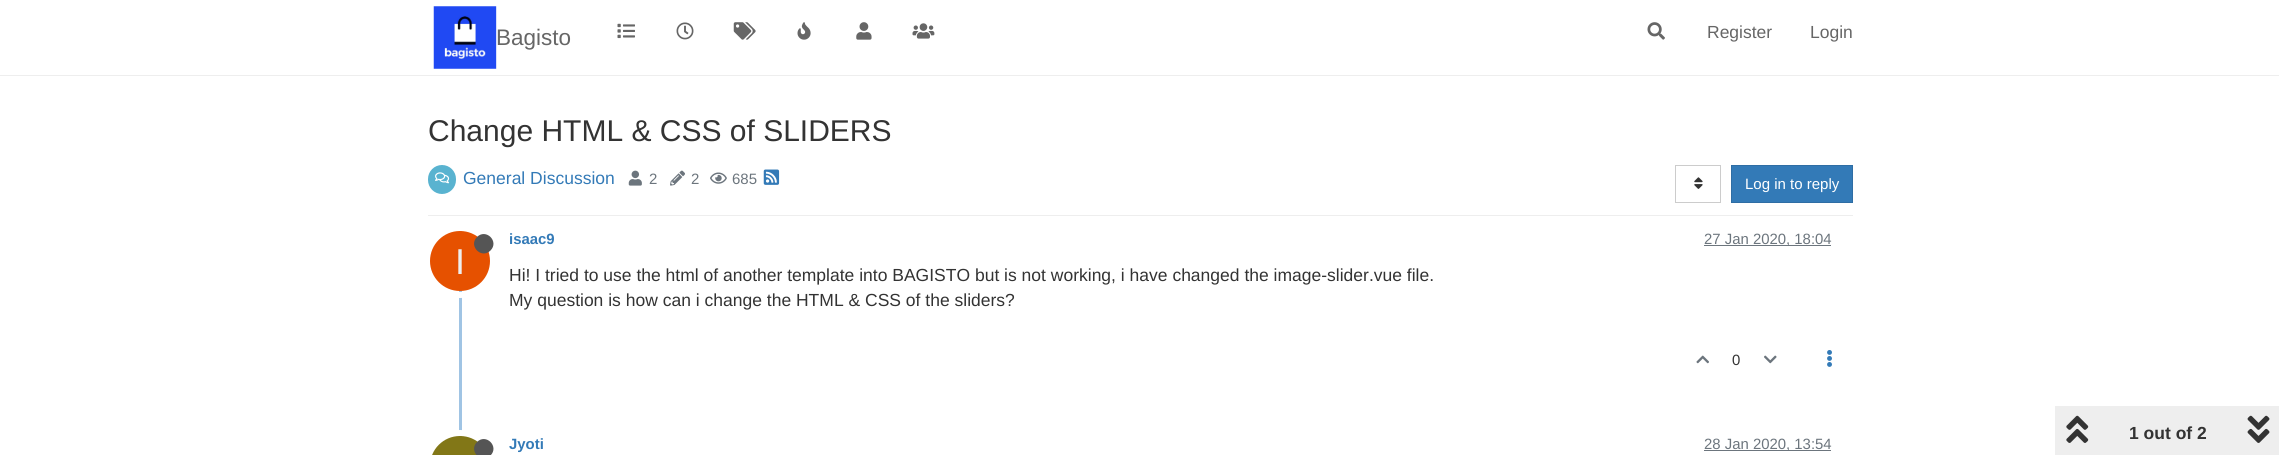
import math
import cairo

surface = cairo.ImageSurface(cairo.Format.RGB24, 2279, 455)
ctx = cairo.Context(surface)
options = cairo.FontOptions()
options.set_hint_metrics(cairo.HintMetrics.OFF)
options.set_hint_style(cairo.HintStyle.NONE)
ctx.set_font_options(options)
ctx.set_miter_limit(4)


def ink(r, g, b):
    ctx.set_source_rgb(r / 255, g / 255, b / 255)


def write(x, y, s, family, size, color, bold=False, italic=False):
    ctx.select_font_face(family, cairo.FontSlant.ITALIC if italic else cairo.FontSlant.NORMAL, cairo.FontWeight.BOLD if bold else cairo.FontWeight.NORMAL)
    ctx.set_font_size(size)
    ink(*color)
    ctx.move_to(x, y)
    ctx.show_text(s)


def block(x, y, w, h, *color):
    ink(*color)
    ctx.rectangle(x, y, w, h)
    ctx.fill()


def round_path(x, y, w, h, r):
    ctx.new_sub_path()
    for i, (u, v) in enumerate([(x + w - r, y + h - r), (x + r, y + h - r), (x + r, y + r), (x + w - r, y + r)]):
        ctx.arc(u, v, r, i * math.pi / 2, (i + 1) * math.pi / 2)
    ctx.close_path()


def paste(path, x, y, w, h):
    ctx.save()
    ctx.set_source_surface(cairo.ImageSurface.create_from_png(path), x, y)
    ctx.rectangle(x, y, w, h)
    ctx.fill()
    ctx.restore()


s1 = dict(family="Liberation Sans", size=22.5, color=(102, 102, 102))
s2 = dict(family="Liberation Sans", size=17.5, color=(102, 102, 102))
s3 = dict(family="Liberation Sans", size=30, color=(51, 51, 51))
s4 = dict(family="Liberation Sans", size=17.5, color=(51, 122, 183))
s5 = dict(family="Liberation Sans", size=15, color=(108, 117, 125))
s6 = dict(family="Liberation Sans", size=15, color=(255, 255, 255))
s7 = dict(family="Liberation Sans", size=14.9, color=(51, 122, 183), bold=True)
s8 = dict(family="Liberation Sans", size=14.9, color=(108, 117, 125))
s9 = dict(family="Liberation Sans", size=36, color=(238, 238, 238))
s10 = dict(family="Liberation Sans", size=17.5, color=(51, 51, 51))
s11 = dict(family="Liberation Sans", size=14.9, color=(51, 51, 51))
s12 = dict(family="Liberation Sans", size=17.5, color=(51, 51, 51), bold=True)

ink(255, 255, 255)
ctx.paint()
block(0, 75, 2279, 1, 238, 238, 238)
paste("pic1.png", 433, 6, 64, 63)
write(496, 45, "Bagisto", **s1)
paste("pic2.png", 617, 23, 18, 16)
paste("pic3.png", 676, 22, 18, 18)
paste("pic4.png", 733, 22, 23, 18)
paste("pic5.png", 797, 22, 14, 18)
paste("pic6.png", 856, 22, 16, 18)
paste("pic7.png", 912, 23, 23, 16)
paste("pic8.png", 1647, 22, 18, 18)
write(1707, 38, "Register", **s2)
write(1810, 38, "Login", **s2)
write(428, 141, "Change HTML & CSS of SLIDERS", **s3)
block(428, 215, 1425, 1, 238, 238, 238)
ink(89, 179, 208)
round_path(428, 165, 28, 29, 14)
ctx.fill()
paste("pic9.png", 435, 172, 15, 12)
write(463, 184, "General Discussion", **s4)
paste("pic10.png", 628, 170, 14, 16)
write(649, 184, "2", **s5)
paste("pic11.png", 670, 170, 15, 16)
write(691, 184, "2", **s5)
paste("pic12.png", 710, 172, 17, 12)
write(732, 184, "685", **s5)
paste("pic13.png", 763, 169, 17, 16)
ctx.rectangle(1675.5, 165.5, 45, 37)
ink(204, 204, 204)
ctx.set_line_width(1)
ctx.stroke()
paste("pic14.png", 1694, 177, 9, 12)
ink(51, 122, 183)
ctx.rectangle(1731.5, 165.5, 121, 37)
ctx.fill_preserve()
ink(46, 109, 164)
ctx.stroke()
write(1745, 189, "Log in to reply", **s6)
block(459, 229, 3, 208, 160, 196, 228)
write(509, 244, "isaac9", **s7)
block(1704, 245, 127, 1, 108, 117, 125)
write(1704, 244, "27 Jan 2020, 18:04", **s8)
round_path(427, 228, 66, 67, 33)
ink(255, 255, 255)
ctx.set_line_width(6)
ctx.stroke()
ink(230, 81, 0)
ctx.arc(460, 261, 30, 0, 2 * math.pi)
ctx.fill()
ink(85, 85, 85)
ctx.new_path()
ctx.move_to(477, 237)
ctx.curve_to(486, 228, 499.5, 241.5, 490.5, 250.5)
ctx.curve_to(481.5, 259.5, 468, 246, 477, 237)
ctx.close_path()
ctx.fill()
write(455, 274, "I", **s9)
write(509, 281, "Hi! I tried to use the html of another template into BAGISTO but is not working, i have changed the image-slider.vue file.", **s10)
write(509, 306, "My question is how can i change the HTML & CSS of the sliders?", **s10)
paste("pic15.png", 1696, 355, 13, 9)
write(1732, 365, "0", **s11)
paste("pic16.png", 1764, 355, 13, 9)
paste("pic17.png", 1827, 350, 5, 17)
round_path(427, 433, 66, 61, 33)
ink(255, 255, 255)
ctx.stroke()
ink(130, 119, 23)
round_path(430, 436, 60, 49, 30)
ctx.fill()
ink(85, 85, 85)
ctx.new_path()
ctx.move_to(477, 442)
ctx.curve_to(486, 433, 499.5, 446.5, 490.5, 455.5)
ctx.curve_to(481.5, 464.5, 468, 451, 477, 442)
ctx.close_path()
ctx.fill()
write(509, 449, "Jyoti", **s7)
block(1704, 450, 127, 1, 108, 117, 125)
write(1704, 449, "28 Jan 2020, 13:54", **s8)
block(2055, 406, 224, 49, 238, 238, 238)
paste("pic18.png", 2066, 415, 23, 28)
write(2129, 439, "1 out of 2", **s12)
paste("pic19.png", 2247, 415, 23, 28)
surface.write_to_png("screenshot.png")
